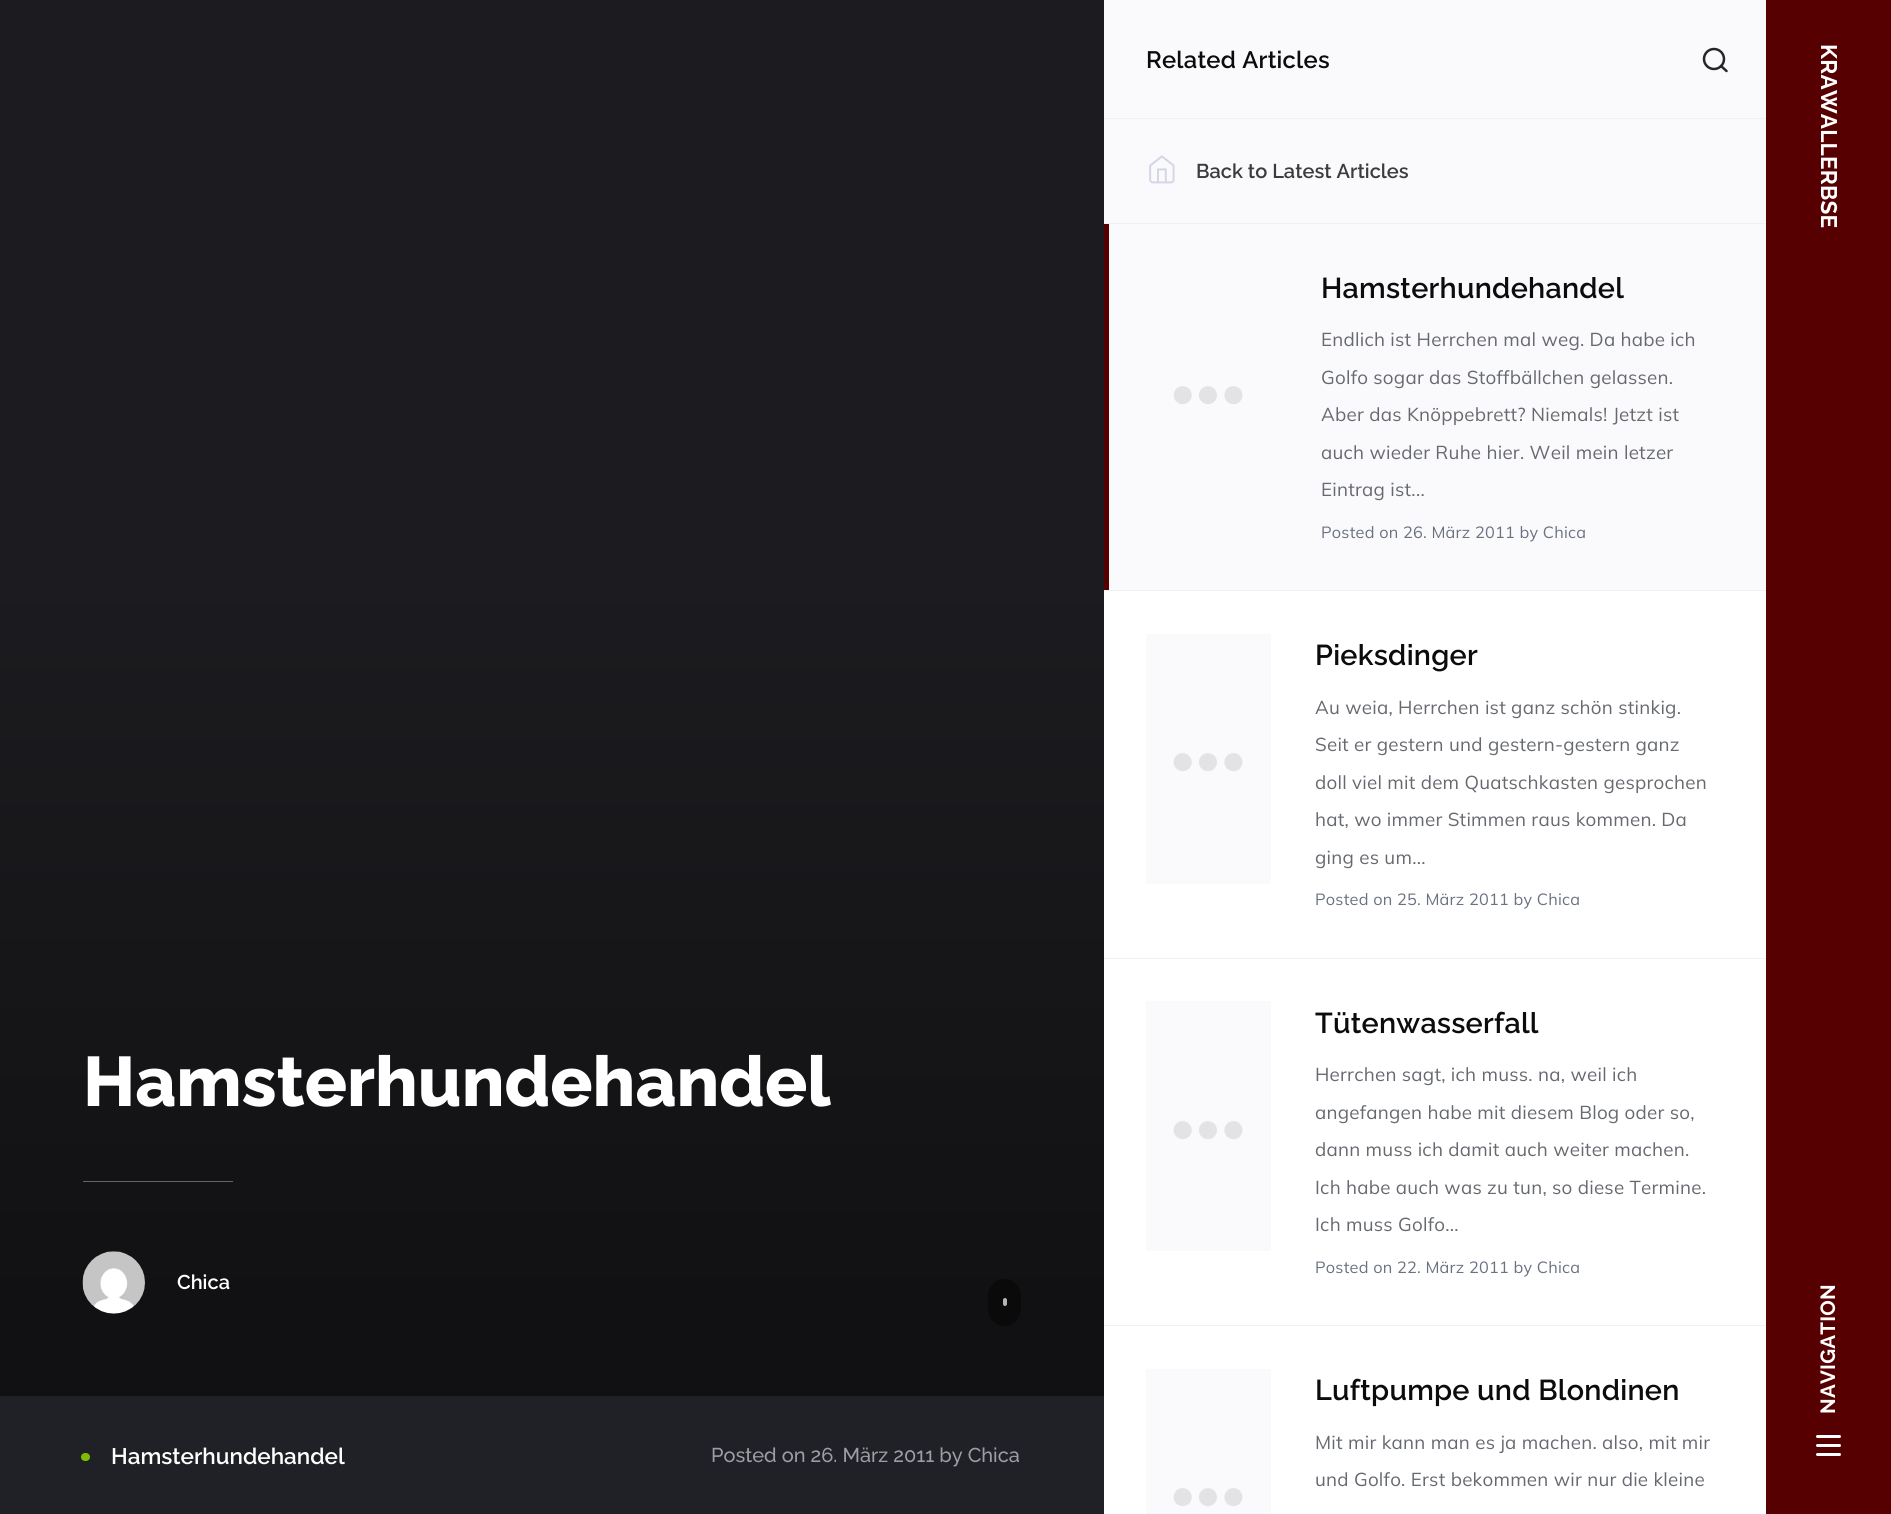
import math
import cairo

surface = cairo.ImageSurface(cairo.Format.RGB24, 1891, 1514)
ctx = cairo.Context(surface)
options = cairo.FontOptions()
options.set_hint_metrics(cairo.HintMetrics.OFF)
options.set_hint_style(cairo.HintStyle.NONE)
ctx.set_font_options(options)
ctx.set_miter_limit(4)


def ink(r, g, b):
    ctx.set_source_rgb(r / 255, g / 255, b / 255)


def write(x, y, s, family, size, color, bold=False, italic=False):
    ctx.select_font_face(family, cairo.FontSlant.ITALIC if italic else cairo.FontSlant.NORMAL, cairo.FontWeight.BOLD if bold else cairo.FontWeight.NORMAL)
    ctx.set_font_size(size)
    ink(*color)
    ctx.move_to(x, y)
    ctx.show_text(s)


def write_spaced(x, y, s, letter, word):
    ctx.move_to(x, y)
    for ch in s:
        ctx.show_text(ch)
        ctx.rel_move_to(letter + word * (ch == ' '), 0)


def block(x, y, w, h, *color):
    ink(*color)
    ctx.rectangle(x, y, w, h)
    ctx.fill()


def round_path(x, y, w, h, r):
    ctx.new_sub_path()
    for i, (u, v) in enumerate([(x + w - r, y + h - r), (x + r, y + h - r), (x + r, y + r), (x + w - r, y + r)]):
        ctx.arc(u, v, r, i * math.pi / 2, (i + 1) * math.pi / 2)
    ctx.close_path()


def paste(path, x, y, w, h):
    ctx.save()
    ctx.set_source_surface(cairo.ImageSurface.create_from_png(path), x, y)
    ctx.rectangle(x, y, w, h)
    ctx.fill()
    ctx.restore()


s1 = dict(family="Raleway ExtraBold", size=70, color=(255, 255, 255))
s2 = dict(family="Raleway SemiBold", size=20, color=(255, 255, 255))
s3 = dict(family="Raleway SemiBold", size=22.5, color=(255, 255, 255))
s4 = dict(family="Raleway Medium", size=20, color=(156, 158, 165))
s5 = dict(family="Raleway SemiBold", size=20, color=(59, 59, 64))
s6 = dict(family="Liberation Serif", size=42, color=(227, 227, 230))

ink(255, 255, 255)
ctx.paint()
gradient = cairo.LinearGradient(552, -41, 552, 1439)
gradient.add_color_stop_rgba(0.41, 0.11, 0.11, 0.125, 1)
gradient.add_color_stop_rgba(0.91, 0.067, 0.067, 0.075, 1)
ctx.set_source(gradient)
ctx.rectangle(0, 0, 1104, 1396)
ctx.fill()
write(83, 1106, "Hamsterhundehandel", **s1)
block(83, 1181, 150, 1, 102, 102, 103)
paste("pic1.png", 82, 1251, 63, 63)
write(177, 1289, "Chica", **s2)
ink(10, 10, 11)
round_path(988, 1279, 33, 47, 16.5)
ctx.fill()
ink(182, 182, 182)
round_path(1003, 1298, 4, 8, 2)
ctx.fill()
block(0, 1396, 1104, 118, 32, 33, 38)
ink(127, 187, 0)
round_path(81, 1453, 9, 8, 4)
ctx.fill()
write(111, 1464, "Hamsterhundehandel", **s3)
write(711, 1462, "Posted on 26. März 2011 by Chica", **s4)
block(1104, 0, 662, 118, 250, 250, 252)
ctx.select_font_face("Raleway SemiBold")
ctx.set_font_size(23.75)
ink(12, 12, 12)
write_spaced(1146, 68, "Related Articles", 0.25, 0)
ctx.new_path()
ctx.arc(1714, 59, 10, 0, 2 * math.pi)
ink(36, 38, 40)
ctx.set_line_width(2.5)
ctx.stroke()
ctx.new_path()
ctx.move_to(1726.5, 71)
ctx.line_to(1721, 66)
ctx.set_line_cap(cairo.LineCap.ROUND)
ctx.set_line_join(cairo.LineJoin.ROUND)
ctx.stroke()
block(1104, 119, 662, 104, 250, 250, 252)
block(1104, 118, 662, 1, 241, 241, 241)
block(1104, 223, 662, 1, 241, 241, 241)
paste("pic2.png", 1149, 155, 26, 29)
write(1196, 178, "Back to Latest Articles", **s5)
block(1109, 224, 657, 366, 250, 250, 252)
block(1104, 590, 662, 1, 241, 241, 241)
block(1104, 224, 5, 366, 86, 0, 1)
write(1170, 407, "●●●", **s6)
ctx.select_font_face("Raleway SemiBold")
ctx.set_font_size(28.75)
ink(12, 12, 12)
write_spaced(1321, 298, "Hamsterhundehandel", 0.25, 0)
ctx.select_font_face("Mulish")
ctx.set_font_size(18.75)
ink(102, 105, 111)
write_spaced(1321, 346, "Endlich ist Herrchen mal weg. Da habe ich", 0.25, 0)
write_spaced(1321, 384, "Golfo sogar das Stoffbällchen gelassen.", 0.25, 0)
write_spaced(1321, 421, "Aber das Knöppebrett? Niemals! Jetzt ist", 0.25, 0)
write_spaced(1321, 459, "auch wieder Ruhe hier. Weil mein letzer", 0.25, 0)
write_spaced(1321, 496, "Eintrag ist...", 0.25, 0)
ctx.set_font_size(16.25)
ink(106, 114, 129)
write_spaced(1321, 538, "Posted on 26. März 2011 by Chica", 0.25, 0)
block(1104, 958, 662, 1, 241, 241, 241)
block(1146, 634, 125, 250, 250, 250, 252)
write(1170, 774, "●●●", **s6)
ctx.select_font_face("Raleway SemiBold")
ctx.set_font_size(28.75)
ink(12, 12, 12)
write_spaced(1315, 665, "Pieksdinger", 0.25, 0)
ctx.select_font_face("Mulish")
ctx.set_font_size(18.75)
ink(102, 105, 111)
write_spaced(1315, 714, "Au weia, Herrchen ist ganz schön stinkig.", 0.25, 0)
write_spaced(1315, 751, "Seit er gestern und gestern-gestern ganz", 0.25, 0)
write_spaced(1315, 789, "doll viel mit dem Quatschkasten gesprochen", 0.25, 0)
write_spaced(1315, 826, "hat, wo immer Stimmen raus kommen. Da", 0.25, 0)
write_spaced(1315, 864, "ging es um...", 0.25, 0)
ctx.set_font_size(16.25)
ink(106, 114, 129)
write_spaced(1315, 905, "Posted on 25. März 2011 by Chica", 0.25, 0)
block(1104, 1325, 662, 1, 241, 241, 241)
block(1146, 1001, 125, 250, 250, 250, 252)
write(1170, 1142, "●●●", **s6)
ctx.select_font_face("Raleway SemiBold")
ctx.set_font_size(28.75)
ink(12, 12, 12)
write_spaced(1315, 1033, "Tütenwasserfall", 0.25, 0)
ctx.select_font_face("Mulish")
ctx.set_font_size(18.75)
ink(102, 105, 111)
write_spaced(1315, 1081, "Herrchen sagt, ich muss. na, weil ich", 0.25, 0)
write_spaced(1315, 1119, "angefangen habe mit diesem Blog oder so,", 0.25, 0)
write_spaced(1315, 1156, "dann muss ich damit auch weiter machen.", 0.25, 0)
write_spaced(1315, 1194, "Ich habe auch was zu tun, so diese Termine.", 0.25, 0)
write_spaced(1315, 1231, "Ich muss Golfo...", 0.25, 0)
ctx.set_font_size(16.25)
ink(106, 114, 129)
write_spaced(1315, 1273, "Posted on 22. März 2011 by Chica", 0.25, 0)
ctx.select_font_face("Raleway SemiBold")
ctx.set_font_size(28.75)
ink(12, 12, 12)
write_spaced(1315, 1400, "Luftpumpe und Blondinen", 0.25, 0)
ctx.select_font_face("Mulish")
ctx.set_font_size(18.75)
ink(102, 105, 111)
write_spaced(1315, 1449, "Mit mir kann man es ja machen. also, mit mir", 0.25, 0)
write_spaced(1315, 1486, "und Golfo. Erst bekommen wir nur die kleine", 0.25, 0)
block(1146, 1369, 125, 145, 250, 250, 252)
write(1170, 1509, "●●●", **s6)
block(1766, 0, 125, 1514, 86, 0, 1)
ctx.select_font_face("Raleway", cairo.FontSlant.NORMAL, cairo.FontWeight.BOLD)
ctx.set_font_size(22.5)
ink(255, 255, 255)
ctx.save()
ctx.translate(1821, 44)
ctx.rotate(90 * math.pi / 180)
write_spaced(0, 0, "KRAWALLERBSE", 0.25, 0)
ctx.restore()
ctx.set_font_size(20.5)
ctx.save()
ctx.translate(1835, 1414)
ctx.rotate(-90 * math.pi / 180)
write_spaced(0, 0, "NAVIGATION", 0.25, 0)
ctx.restore()
round_path(1816, 1435, 25, 3, 1.5)
ctx.fill()
round_path(1816, 1444, 25, 3, 1.5)
ctx.fill()
round_path(1816, 1453, 25, 3, 1.5)
ctx.fill()
surface.write_to_png("screenshot.png")
